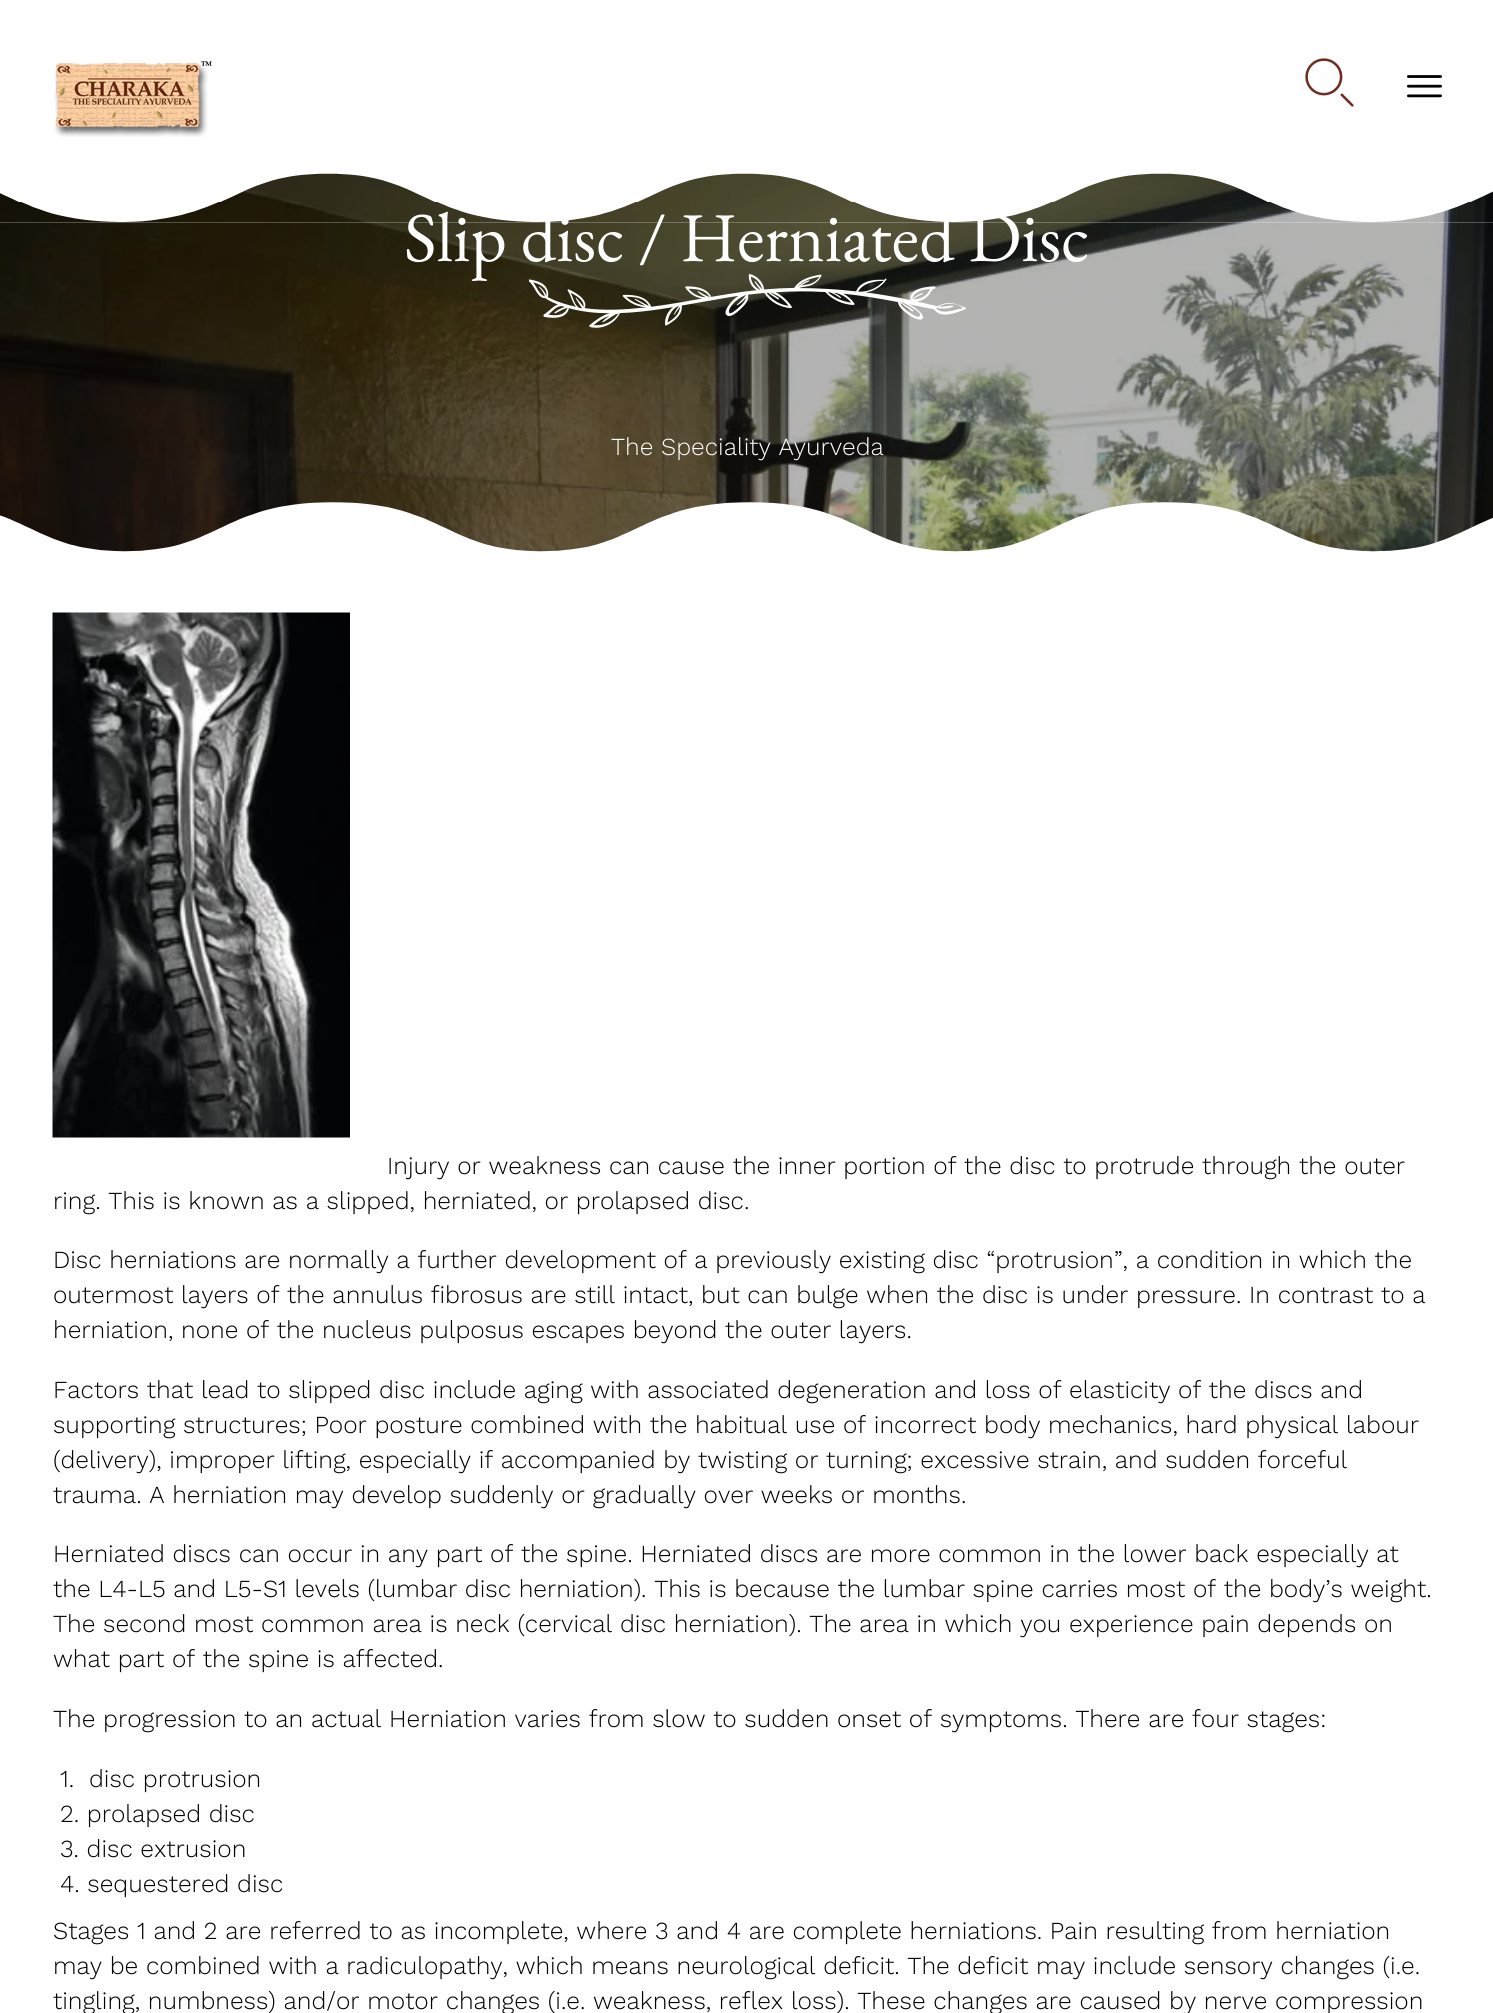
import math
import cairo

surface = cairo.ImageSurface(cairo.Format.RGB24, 1493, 2013)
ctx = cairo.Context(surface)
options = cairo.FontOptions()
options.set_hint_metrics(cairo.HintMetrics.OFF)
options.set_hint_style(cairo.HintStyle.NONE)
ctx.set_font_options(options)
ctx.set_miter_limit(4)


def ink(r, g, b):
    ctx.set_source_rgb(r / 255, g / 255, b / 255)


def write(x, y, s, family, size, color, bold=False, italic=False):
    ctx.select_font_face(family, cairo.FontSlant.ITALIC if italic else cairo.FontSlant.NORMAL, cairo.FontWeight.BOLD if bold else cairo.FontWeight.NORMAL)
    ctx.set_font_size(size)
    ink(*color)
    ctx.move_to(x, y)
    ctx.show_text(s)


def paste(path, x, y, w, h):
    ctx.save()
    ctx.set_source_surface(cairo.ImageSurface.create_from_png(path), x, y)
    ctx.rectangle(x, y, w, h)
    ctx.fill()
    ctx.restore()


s1 = dict(family="EB Garamond", size=70, color=(255, 255, 255))
s2 = dict(family="Work Sans Light", size=24.5, color=(255, 255, 255))
s3 = dict(family="Work Sans Light", size=24.5, color=(0, 0, 0))

ink(255, 255, 255)
ctx.paint()
paste("pic1.png", 54, 61, 158, 76)
paste("pic2.png", 1305, 58, 49, 49)
paste("pic3.png", 1407, 75, 35, 23)
paste("pic4.png", 0, 173, 1493, 379)
write(404, 261, "Slip disc / Herniated Disc", **s1)
paste("pic5.png", 0, 166, 1493, 57)
paste("pic6.png", 529, 274, 437, 54)
write(611, 455, "The Speciality Ayurveda", **s2)
paste("pic7.png", 0, 502, 1493, 58)
paste("pic8.png", 52, 612, 298, 526)
write(387, 1174, "Injury or weakness can cause the inner portion of the disc to protrude through the outer", **s3)
write(53, 1209, "ring. This is known as a slipped, herniated, or prolapsed disc.", **s3)
write(53, 1268, "Disc herniations are normally a further development of a previously existing disc “protrusion”, a condition in which the", **s3)
write(53, 1303, "outermost layers of the annulus fibrosus are still intact, but can bulge when the disc is under pressure. In contrast to a", **s3)
write(53, 1338, "herniation, none of the nucleus pulposus escapes beyond the outer layers.", **s3)
write(53, 1398, "Factors that lead to slipped disc include aging with associated degeneration and loss of elasticity of the discs and", **s3)
write(53, 1433, "supporting structures; Poor posture combined with the habitual use of incorrect body mechanics, hard physical labour", **s3)
write(53, 1468, "(delivery), improper lifting, especially if accompanied by twisting or turning; excessive strain, and sudden forceful", **s3)
write(53, 1503, "trauma. A herniation may develop suddenly or gradually over weeks or months.", **s3)
write(53, 1562, "Herniated discs can occur in any part of the spine. Herniated discs are more common in the lower back especially at", **s3)
write(53, 1597, "the L4-L5 and L5-S1 levels (lumbar disc herniation). This is because the lumbar spine carries most of the body’s weight.", **s3)
write(53, 1632, "The second most common area is neck (cervical disc herniation). The area in which you experience pain depends on", **s3)
write(53, 1667, "what part of the spine is affected.", **s3)
write(53, 1727, "The progression to an actual Herniation varies from slow to sudden onset of symptoms. There are four stages:", **s3)
write(60, 1787, "1.", **s3)
write(89, 1787, "disc protrusion", **s3)
write(60, 1822, "2. prolapsed disc", **s3)
write(60, 1857, "3. disc extrusion", **s3)
write(60, 1892, "4. sequestered disc", **s3)
write(53, 1939, "Stages 1 and 2 are referred to as incomplete, where 3 and 4 are complete herniations. Pain resulting from herniation", **s3)
write(53, 1974, "may be combined with a radiculopathy, which means neurological deficit. The deficit may include sensory changes (i.e.", **s3)
write(53, 2009, "tingling, numbness) and/or motor changes (i.e. weakness, reflex loss). These changes are caused by nerve compression", **s3)
surface.write_to_png("screenshot.png")
